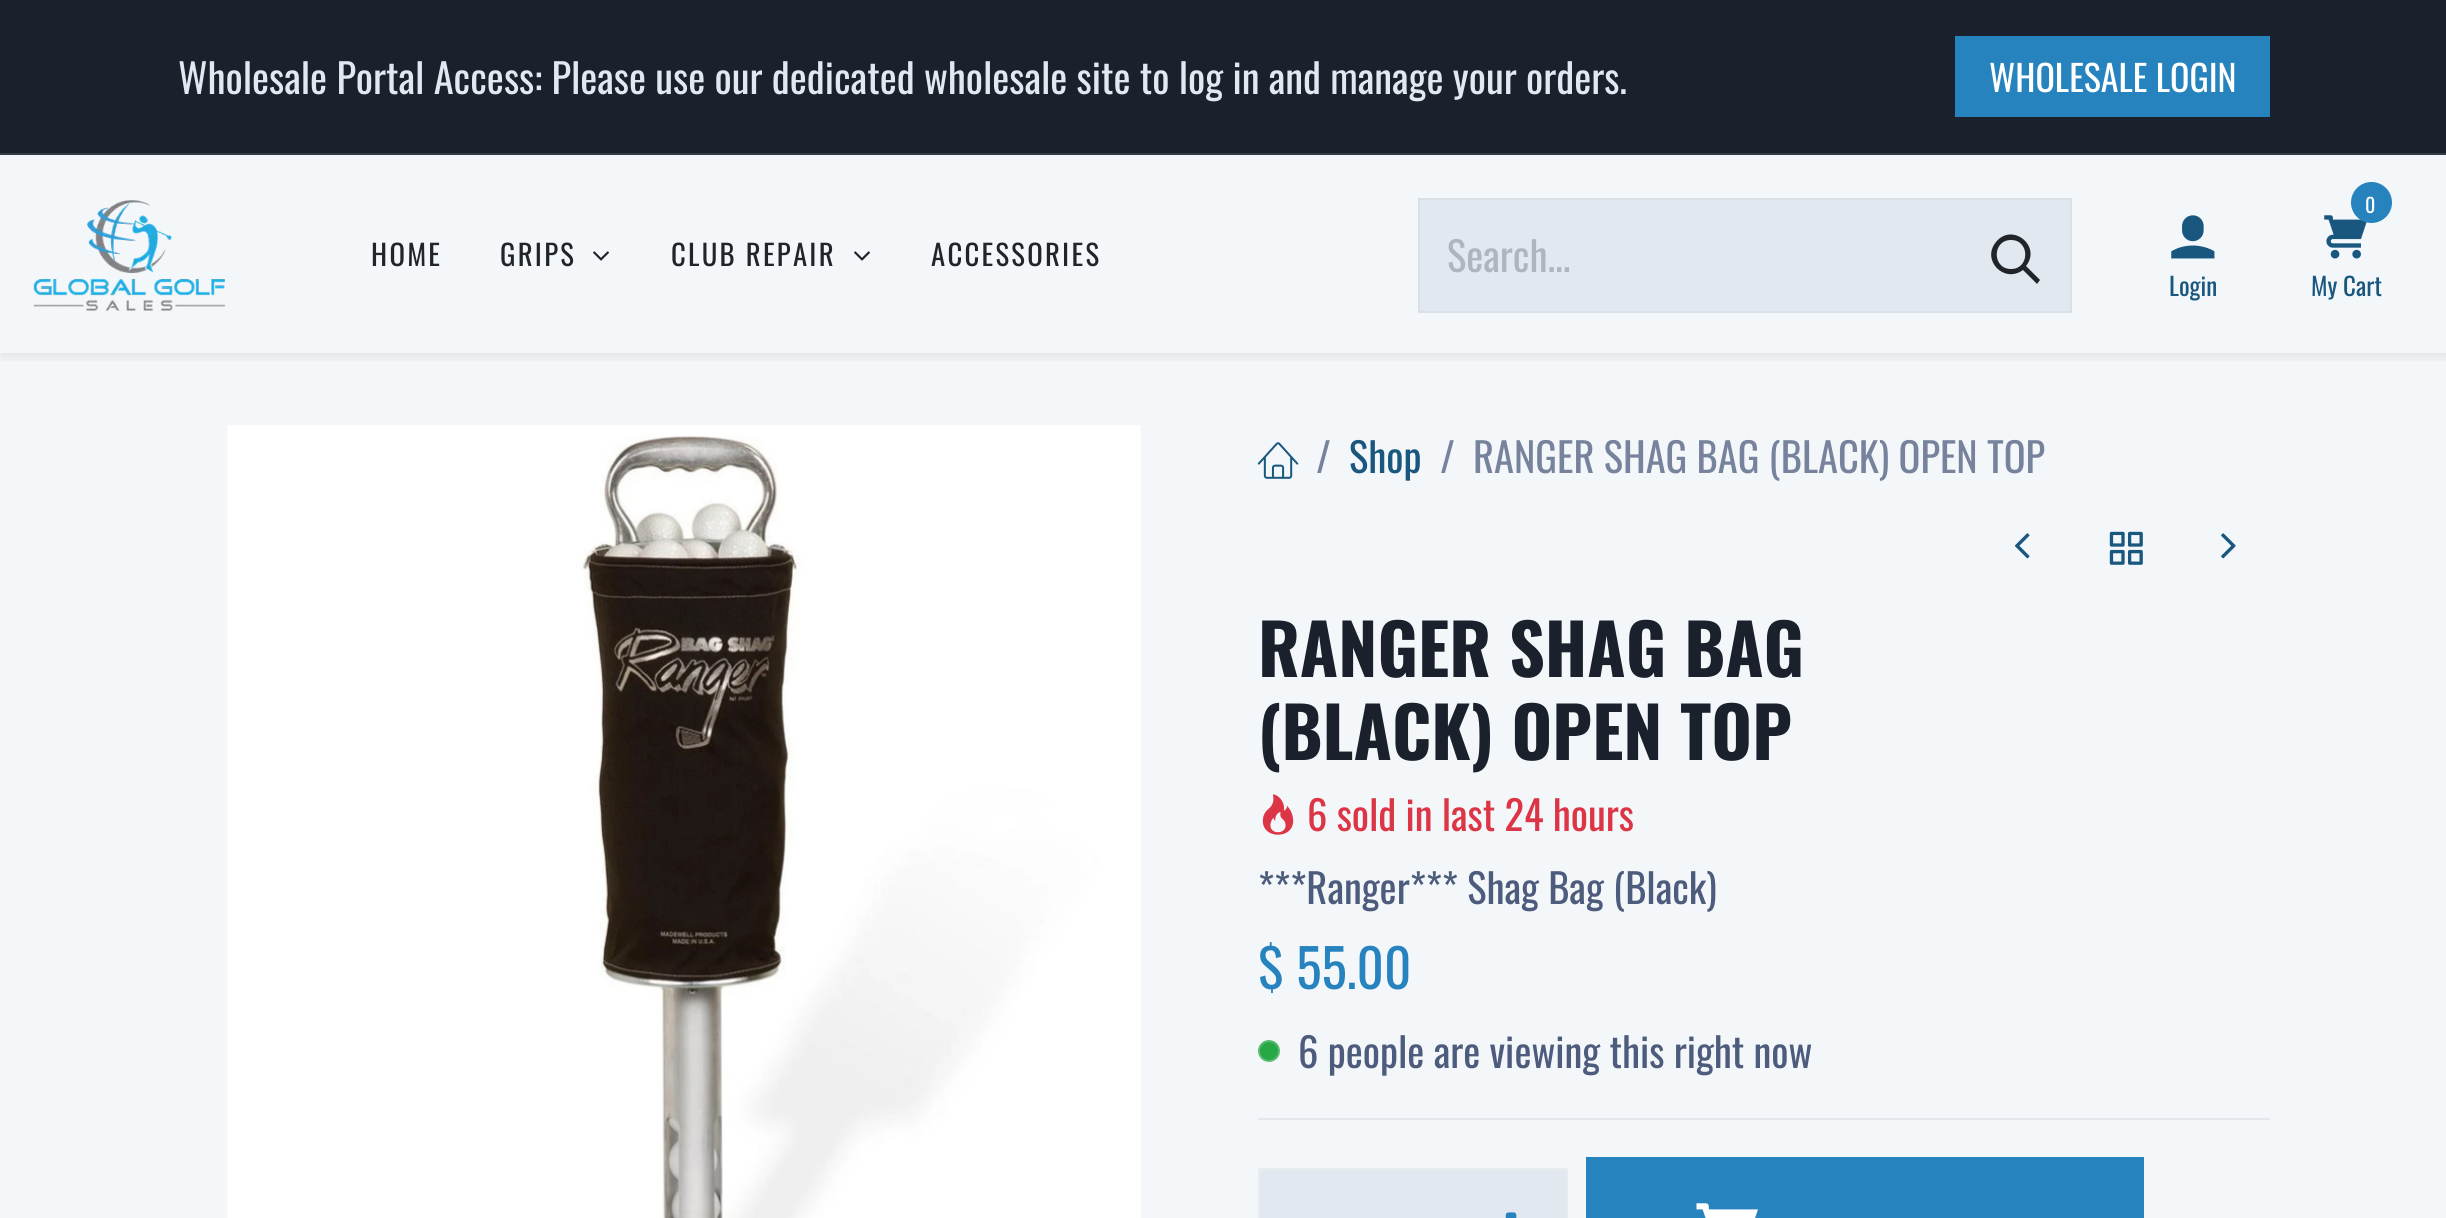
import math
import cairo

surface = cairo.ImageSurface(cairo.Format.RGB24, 2446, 1218)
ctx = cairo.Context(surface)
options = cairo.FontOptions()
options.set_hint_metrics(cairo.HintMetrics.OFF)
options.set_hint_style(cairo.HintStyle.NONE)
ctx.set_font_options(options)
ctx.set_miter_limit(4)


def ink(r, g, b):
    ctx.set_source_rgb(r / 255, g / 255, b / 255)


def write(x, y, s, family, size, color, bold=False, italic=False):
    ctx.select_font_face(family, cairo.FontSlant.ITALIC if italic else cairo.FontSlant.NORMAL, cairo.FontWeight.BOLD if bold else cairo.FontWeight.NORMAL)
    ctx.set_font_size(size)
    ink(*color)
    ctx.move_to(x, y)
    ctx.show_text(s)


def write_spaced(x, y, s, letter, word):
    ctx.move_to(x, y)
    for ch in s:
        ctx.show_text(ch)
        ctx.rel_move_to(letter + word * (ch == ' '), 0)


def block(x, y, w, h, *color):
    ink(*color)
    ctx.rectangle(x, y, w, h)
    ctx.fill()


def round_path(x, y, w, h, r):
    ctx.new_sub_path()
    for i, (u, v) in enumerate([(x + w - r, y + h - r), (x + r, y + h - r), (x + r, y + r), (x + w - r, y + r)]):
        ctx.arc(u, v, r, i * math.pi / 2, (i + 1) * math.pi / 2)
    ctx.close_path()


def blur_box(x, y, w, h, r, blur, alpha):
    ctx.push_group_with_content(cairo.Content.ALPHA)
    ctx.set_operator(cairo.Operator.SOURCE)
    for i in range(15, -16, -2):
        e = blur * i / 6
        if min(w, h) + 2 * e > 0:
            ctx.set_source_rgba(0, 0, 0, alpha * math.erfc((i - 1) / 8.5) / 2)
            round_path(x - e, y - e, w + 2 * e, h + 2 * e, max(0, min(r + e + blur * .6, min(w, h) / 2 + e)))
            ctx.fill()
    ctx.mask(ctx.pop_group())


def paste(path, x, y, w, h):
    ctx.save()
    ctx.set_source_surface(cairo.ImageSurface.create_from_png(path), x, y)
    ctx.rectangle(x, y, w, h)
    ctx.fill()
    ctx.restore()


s1 = dict(family="Oswald", size=40.5, color=(226, 232, 240))
s2 = dict(family="Oswald", size=36, color=(255, 255, 255))
s3 = dict(family="Oswald", size=40.5, color=(173, 181, 189))
s4 = dict(family="Oswald", size=25, color=(25, 87, 126))
s5 = dict(family="Oswald", size=20, color=(255, 255, 255))
s6 = dict(family="Oswald", size=40.5, color=(119, 130, 156))
s7 = dict(family="Oswald", size=40.5, color=(25, 87, 126))
s8 = dict(family="Oswald", size=69.75, color=(26, 32, 44), bold=True)
s9 = dict(family="Oswald", size=40.5, color=(220, 53, 69))
s10 = dict(family="Oswald", size=40.5, color=(77, 91, 124))
s11 = dict(family="Oswald", size=53, color=(38, 131, 190))

ink(244, 247, 250)
ctx.paint()
block(0, 0, 2446, 153, 26, 32, 44)
block(0, 153, 2446, 2, 53, 59, 69)
write(178, 94, "Wholesale Portal Access: Please use our dedicated wholesale site to log in and manage your orders.", **s1)
block(1955, 36, 315, 81, 38, 131, 190)
write(1989, 92, "WHOLESALE LOGIN", **s2)
ctx.save()
ctx.rectangle(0, 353, 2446, 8)
ctx.clip()
ink(0, 0, 0)
blur_box(0, 160, 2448, 198, 0, 4.5, 0.07)
ctx.restore()
paste("pic1.png", 33, 200, 192, 111)
ctx.set_font_size(28.75)
ink(33, 37, 41)
write_spaced(371, 266, "HOME", 2.25, 0)
write_spaced(500, 266, "GRIPS", 2.25, 0)
paste("pic2.png", 593, 251, 16, 10)
write_spaced(671, 266, "CLUB REPAIR", 2.25, 0)
paste("pic2.png", 854, 251, 16, 10)
write_spaced(931, 266, "ACCESSORIES", 2.25, 0)
ctx.rectangle(1419, 199, 652, 113)
ink(219, 224, 231)
ctx.stroke()
block(1420, 200, 650, 111, 226, 232, 240)
write(1447, 272, "Search...", **s3)
ink(33, 37, 41)
ctx.new_path()
ctx.move_to(1996, 242)
ctx.curve_to(2012, 222, 2042, 246, 2026, 266)
ctx.line_to(2040, 280)
ctx.line_to(2037, 284)
ctx.line_to(2023, 270)
ctx.curve_to(2004, 284, 1981, 260, 1996, 242)
ctx.close_path()
ctx.move_to(2011, 240)
ctx.curve_to(1992, 240, 1992, 269, 2011, 269)
ctx.curve_to(2030, 269, 2030, 240, 2011, 240)
ctx.close_path()
ctx.fill()
paste("pic3.png", 2171, 215, 44, 44)
write(2169, 296, "Login", **s4)
paste("pic4.png", 2324, 215, 43, 44)
ink(38, 131, 190)
ctx.arc(2371.5, 202.5, 20.5, 0, 2 * math.pi)
ctx.fill()
write(2365, 213, "0", **s5)
write(2311, 296, "My Cart", **s4)
paste("pic5.png", 227, 425, 914, 793)
paste("pic6.png", 1257, 442, 42, 37)
write(1316, 473, "/", **s6)
write(1349, 473, "Shop", **s7)
write(1440, 473, "/", **s6)
write(1473, 473, "RANGER SHAG BAG (BLACK) OPEN TOP", **s6)
paste("pic7.png", 2014, 533, 16, 26)
paste("pic8.png", 2109, 531, 34, 34)
paste("pic9.png", 2221, 533, 15, 26)
write(1258, 677, "RANGER SHAG BAG", **s8)
write(1258, 760, "(BLACK) OPEN TOP", **s8)
paste("pic10.png", 1262, 794, 32, 41)
write(1307, 831, "6 sold in last 24 hours", **s9)
write(1258, 904, "***Ranger*** Shag Bag (Black)", **s10)
write(1258, 989, "$ 55.00", **s11)
ink(40, 167, 69)
ctx.new_path()
ctx.arc(1269, 1051, 9, 0, 2 * math.pi)
ctx.fill()
ctx.set_source_rgba(0.157, 0.655, 0.271, 0.75)
ctx.arc(1269, 1051, 11, 0, 2 * math.pi)
ctx.fill()
write(1298, 1068, "6 people are viewing this right now", **s10)
block(1258, 1118, 1012, 2, 228, 232, 238)
ink(226, 232, 240)
ctx.rectangle(1259, 1169, 308, 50)
ctx.fill_preserve()
ink(233, 236, 239)
ctx.stroke()
paste("pic11.png", 1505, 1212, 12, 6)
block(1586, 1157, 558, 61, 38, 131, 190)
paste("pic12.png", 1696, 1203, 62, 15)
surface.write_to_png("screenshot.png")
